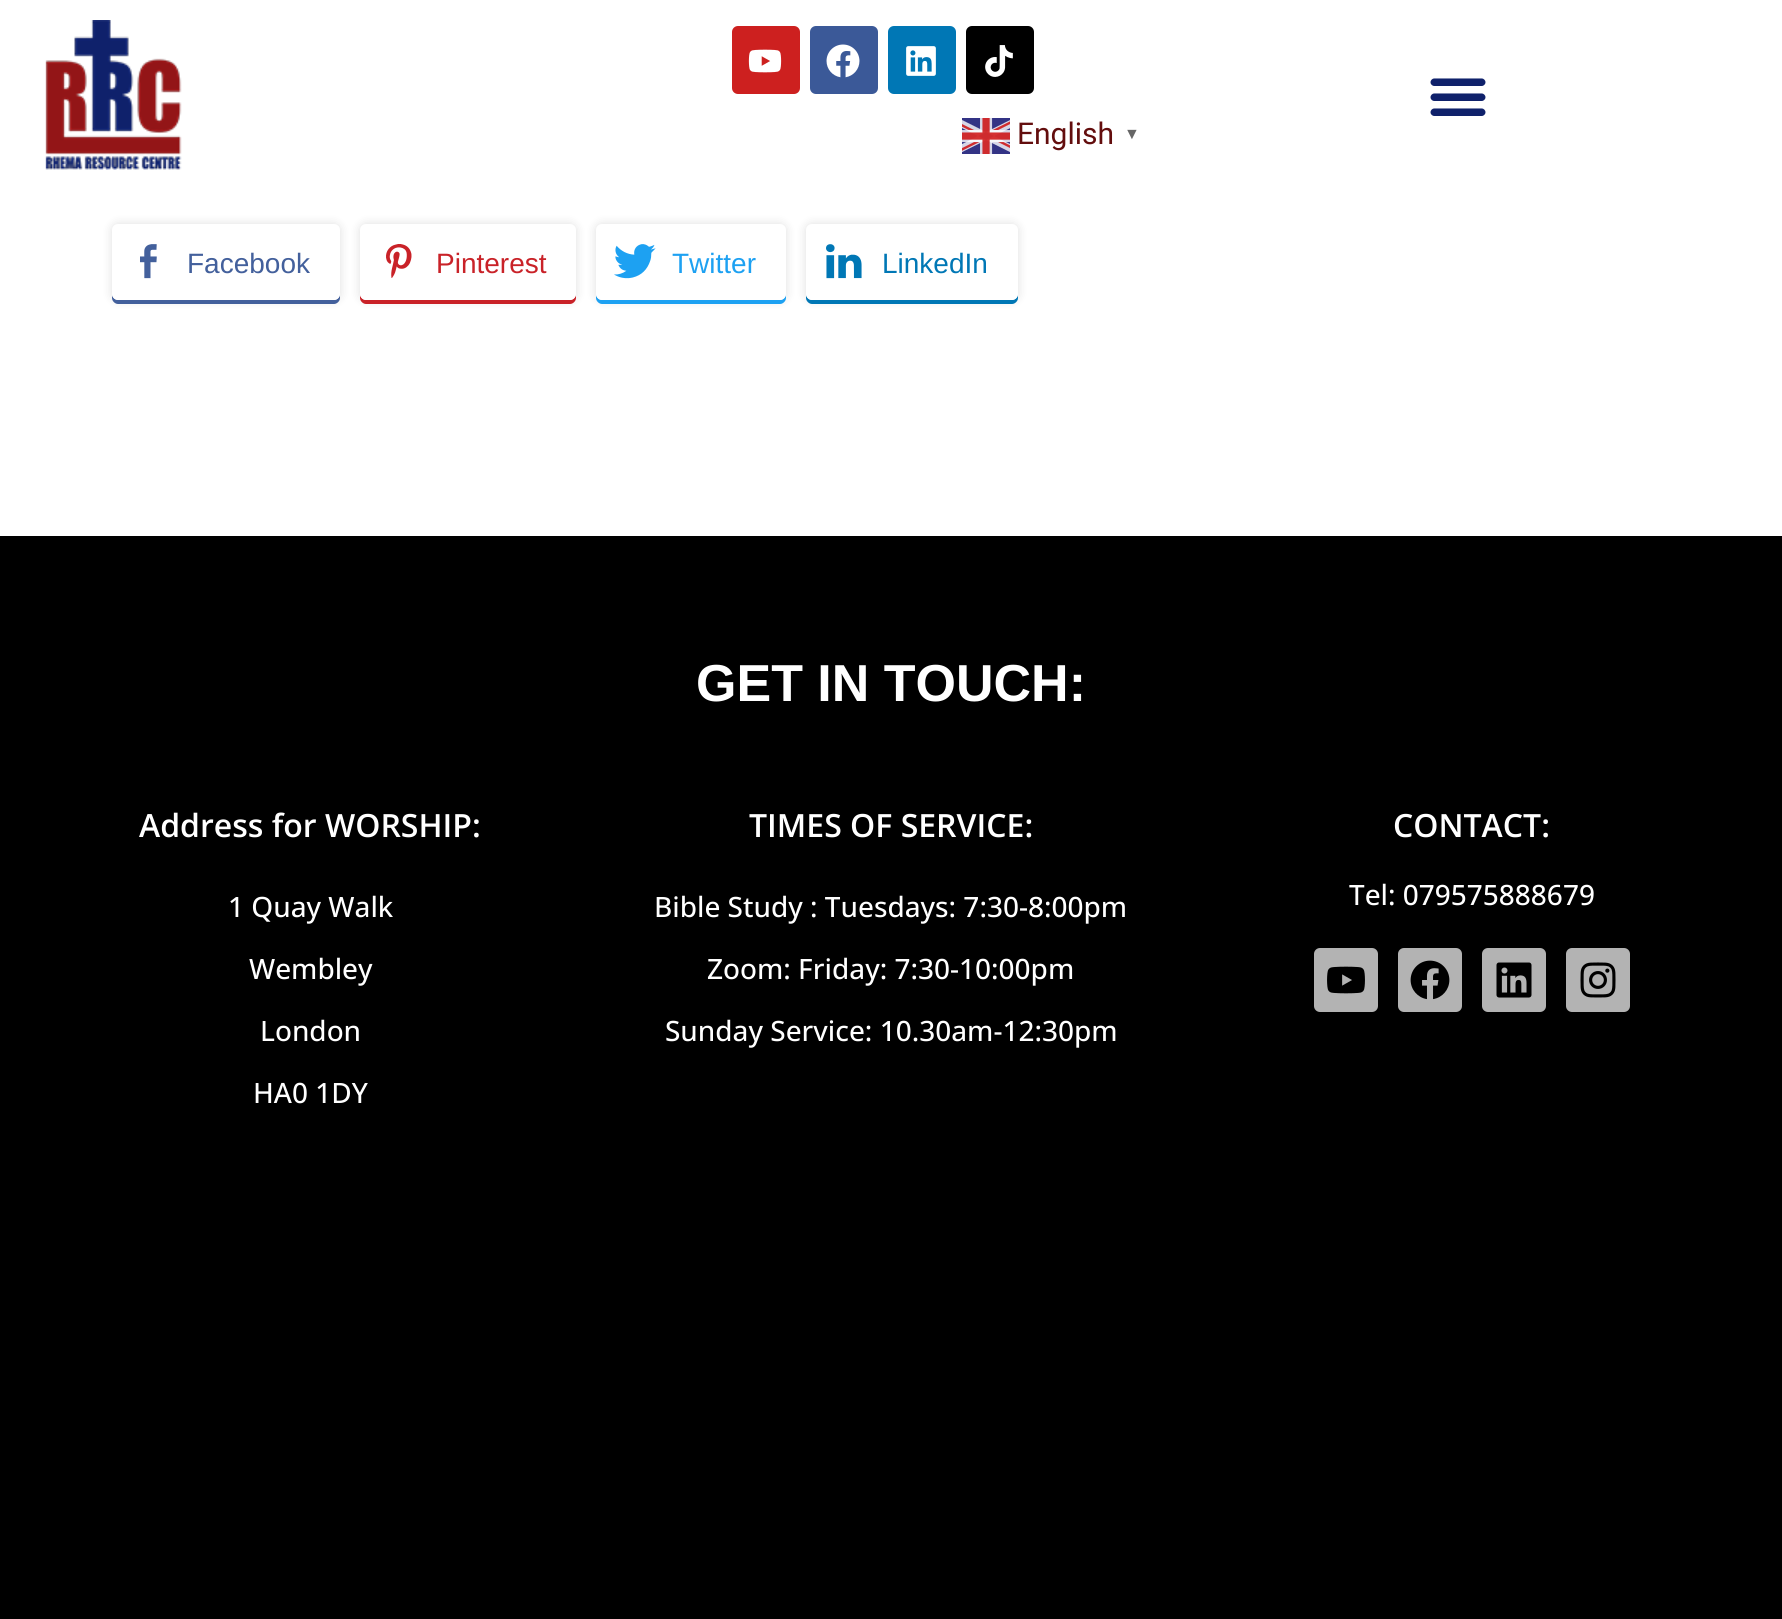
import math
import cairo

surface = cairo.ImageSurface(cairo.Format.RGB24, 1782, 1619)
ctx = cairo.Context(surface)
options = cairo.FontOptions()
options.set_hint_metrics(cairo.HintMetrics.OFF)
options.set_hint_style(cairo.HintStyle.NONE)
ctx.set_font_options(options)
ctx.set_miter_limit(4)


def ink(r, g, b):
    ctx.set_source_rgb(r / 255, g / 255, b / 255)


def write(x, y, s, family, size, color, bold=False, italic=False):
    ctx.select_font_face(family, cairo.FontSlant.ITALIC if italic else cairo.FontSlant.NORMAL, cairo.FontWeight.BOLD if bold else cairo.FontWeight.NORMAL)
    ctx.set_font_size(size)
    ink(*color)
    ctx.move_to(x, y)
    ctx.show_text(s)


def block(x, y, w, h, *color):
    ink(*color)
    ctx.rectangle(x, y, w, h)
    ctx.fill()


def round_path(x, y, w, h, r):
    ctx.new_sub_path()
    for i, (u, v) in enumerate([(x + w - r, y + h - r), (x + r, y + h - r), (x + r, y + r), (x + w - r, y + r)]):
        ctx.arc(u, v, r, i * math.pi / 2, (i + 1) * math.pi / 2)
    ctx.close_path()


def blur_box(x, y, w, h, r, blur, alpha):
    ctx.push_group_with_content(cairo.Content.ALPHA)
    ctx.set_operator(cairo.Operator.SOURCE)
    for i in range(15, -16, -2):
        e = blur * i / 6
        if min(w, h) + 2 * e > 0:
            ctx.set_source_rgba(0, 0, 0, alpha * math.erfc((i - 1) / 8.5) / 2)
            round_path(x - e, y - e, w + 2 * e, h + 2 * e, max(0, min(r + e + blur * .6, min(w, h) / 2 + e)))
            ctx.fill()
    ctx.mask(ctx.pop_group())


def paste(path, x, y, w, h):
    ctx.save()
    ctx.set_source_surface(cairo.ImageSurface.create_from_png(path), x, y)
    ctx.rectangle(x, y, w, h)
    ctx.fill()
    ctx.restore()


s1 = dict(family="Roboto", size=30, color=(99, 13, 13))
s2 = dict(family="Liberation Sans", size=16, color=(102, 102, 102), bold=True)
s3 = dict(family="Liberation Sans", size=28, color=(67, 96, 156))
s4 = dict(family="Liberation Sans", size=28, color=(201, 34, 40))
s5 = dict(family="Liberation Sans", size=28, color=(29, 161, 242))
s6 = dict(family="Liberation Sans", size=28, color=(0, 119, 181))
s7 = dict(family="Liberation Sans", size=52, color=(255, 255, 255), bold=True)
s8 = dict(family="Open Sans SemiBold", size=32, color=(255, 255, 255))
s9 = dict(family="Open Sans Medium", size=28, color=(255, 255, 255))

ink(255, 255, 255)
ctx.paint()
paste("pic1.png", 45, 20, 137, 150)
paste("pic2.png", 1430, 78, 56, 38)
ink(205, 32, 31)
round_path(732, 26, 68, 68, 6)
ctx.fill()
paste("pic3.png", 748, 49, 34, 24)
ink(59, 89, 152)
round_path(810, 26, 68, 68, 6)
ctx.fill()
paste("pic4.png", 826, 44, 34, 34)
ink(0, 119, 181)
round_path(888, 26, 68, 68, 6)
ctx.fill()
paste("pic5.png", 906, 46, 30, 30)
ink(0, 0, 0)
round_path(966, 26, 68, 68, 6)
ctx.fill()
paste("pic6.png", 985, 45, 28, 32)
paste("pic7.png", 962, 118, 48, 36)
write(1017, 144, "English", **s1)
write(1124, 139, "▼", **s2)
ink(0, 0, 0)
blur_box(112, 224, 228, 76, 6, 5, 0.13)
ink(67, 96, 156)
ctx.new_path()
ctx.move_to(112, 294)
ctx.line_to(112, 298)
ctx.curve_to(112, 301, 115, 304, 118, 304)
ctx.line_to(334, 304)
ctx.curve_to(337, 304, 340, 301, 340, 298)
ctx.line_to(340, 294)
ctx.curve_to(340, 297, 337, 300, 334, 300)
ctx.line_to(118, 300)
ctx.curve_to(115, 300, 112, 297, 112, 294)
ctx.close_path()
ctx.fill()
ink(255, 255, 255)
round_path(112, 224, 228, 76, 6)
ctx.fill()
paste("pic8.png", 140, 244, 17, 35)
write(187, 273, "Facebook", **s3)
ink(0, 0, 0)
blur_box(360, 224, 216, 76, 6, 5, 0.13)
ink(201, 34, 40)
ctx.new_path()
ctx.move_to(360, 294)
ctx.line_to(360, 298)
ctx.curve_to(360, 301, 363, 304, 366, 304)
ctx.line_to(570, 304)
ctx.curve_to(573, 304, 576, 301, 576, 298)
ctx.line_to(576, 294)
ctx.curve_to(576, 297, 573, 300, 570, 300)
ctx.line_to(366, 300)
ctx.curve_to(363, 300, 360, 297, 360, 294)
ctx.close_path()
ctx.fill()
ink(255, 255, 255)
round_path(360, 224, 216, 76, 6)
ctx.fill()
paste("pic9.png", 386, 244, 26, 34)
write(436, 273, "Pinterest", **s4)
ink(0, 0, 0)
blur_box(596, 224, 190, 76, 6, 5, 0.13)
ink(29, 161, 242)
ctx.new_path()
ctx.move_to(596, 294)
ctx.line_to(596, 298)
ctx.curve_to(596, 301, 599, 304, 602, 304)
ctx.line_to(780, 304)
ctx.curve_to(783, 304, 786, 301, 786, 298)
ctx.line_to(786, 294)
ctx.curve_to(786, 297, 783, 300, 780, 300)
ctx.line_to(602, 300)
ctx.curve_to(599, 300, 596, 297, 596, 294)
ctx.close_path()
ctx.fill()
ink(255, 255, 255)
round_path(596, 224, 190, 76, 6)
ctx.fill()
paste("pic10.png", 614, 244, 42, 35)
write(672, 273, "Twitter", **s5)
ink(0, 0, 0)
blur_box(806, 224, 212, 76, 6, 5, 0.13)
ink(0, 119, 181)
ctx.new_path()
ctx.move_to(806, 294)
ctx.line_to(806, 298)
ctx.curve_to(806, 301, 809, 304, 812, 304)
ctx.line_to(1012, 304)
ctx.curve_to(1015, 304, 1018, 301, 1018, 298)
ctx.line_to(1018, 294)
ctx.curve_to(1018, 297, 1015, 300, 1012, 300)
ctx.line_to(812, 300)
ctx.curve_to(809, 300, 806, 297, 806, 294)
ctx.close_path()
ctx.fill()
ink(255, 255, 255)
round_path(806, 224, 212, 76, 6)
ctx.fill()
paste("pic11.png", 826, 244, 36, 35)
write(882, 273, "LinkedIn", **s6)
block(0, 536, 1782, 1083, 0, 0, 0)
write(696, 701, "GET IN TOUCH:", **s7)
write(139, 837, "Address for WORSHIP:", **s8)
write(228, 917, "1 Quay Walk", **s9)
write(249, 979, "Wembley", **s9)
write(260, 1041, "London", **s9)
write(253, 1103, "HA0 1DY", **s9)
write(749, 837, "TIMES OF SERVICE:", **s8)
write(654, 917, "Bible Study : Tuesdays: 7:30-8:00pm", **s9)
write(707, 979, "Zoom: Friday: 7:30-10:00pm", **s9)
write(665, 1041, "Sunday Service: 10.30am-12:30pm", **s9)
write(1393, 837, "CONTACT:", **s8)
write(1349, 905, "Tel: 079575888679", **s9)
ink(179, 179, 179)
round_path(1314, 948, 64, 64, 6)
ctx.fill()
paste("pic12.png", 1327, 966, 38, 28)
round_path(1398, 948, 64, 64, 6)
ctx.fill()
paste("pic13.png", 1410, 960, 40, 40)
round_path(1482, 948, 64, 64, 6)
ctx.fill()
paste("pic14.png", 1496, 962, 36, 36)
round_path(1566, 948, 64, 64, 6)
ctx.fill()
paste("pic15.png", 1580, 962, 36, 36)
surface.write_to_png("screenshot.png")
